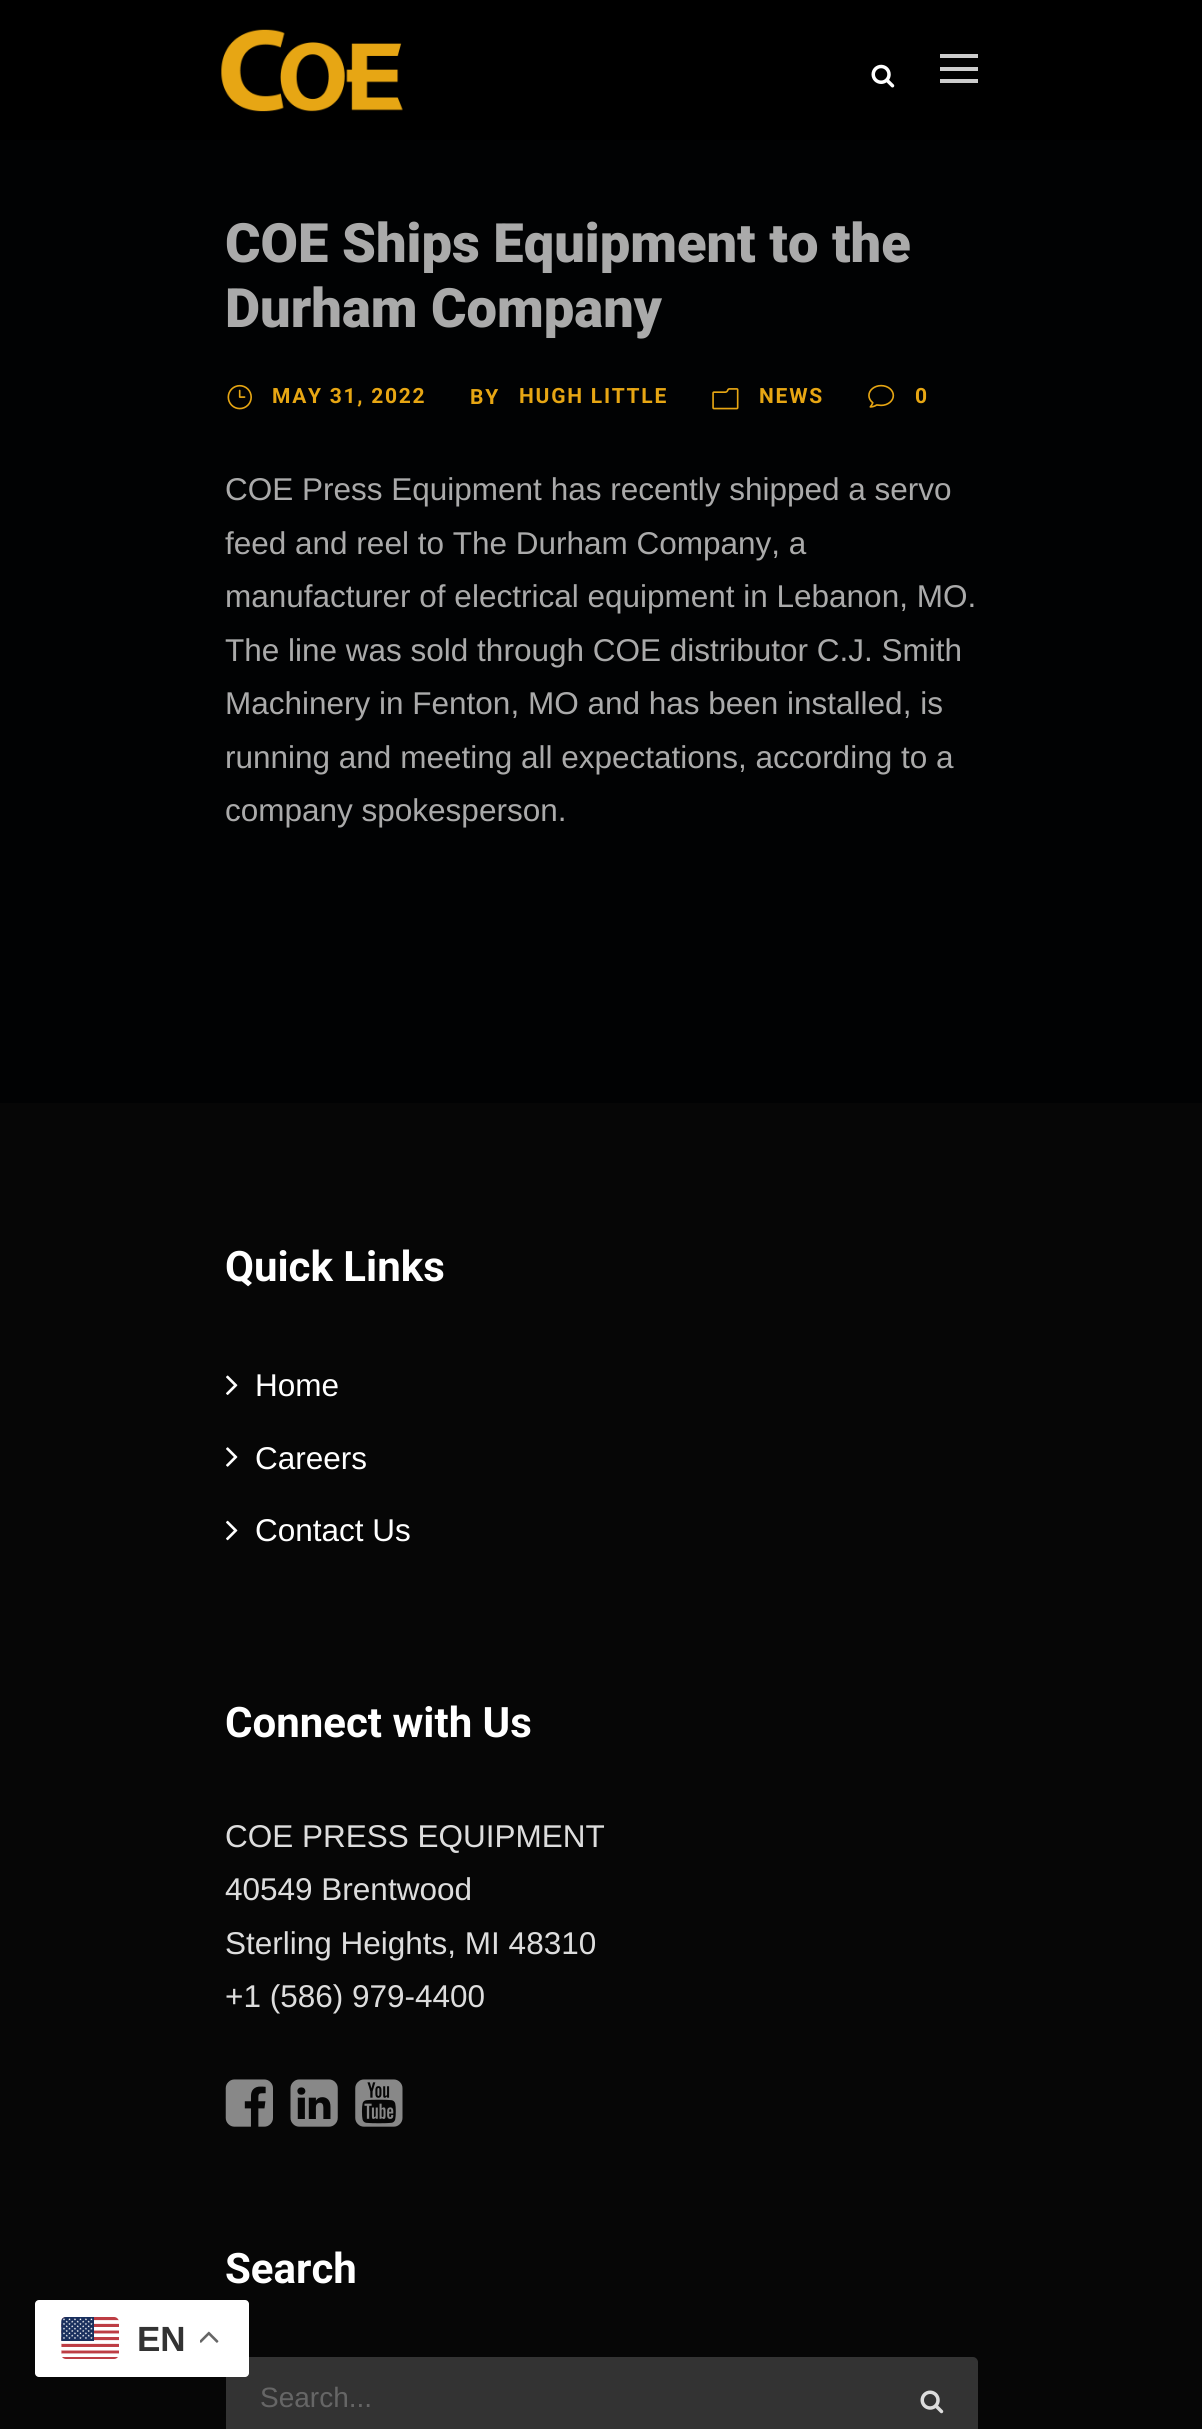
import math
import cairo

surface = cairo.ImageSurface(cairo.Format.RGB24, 1202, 2429)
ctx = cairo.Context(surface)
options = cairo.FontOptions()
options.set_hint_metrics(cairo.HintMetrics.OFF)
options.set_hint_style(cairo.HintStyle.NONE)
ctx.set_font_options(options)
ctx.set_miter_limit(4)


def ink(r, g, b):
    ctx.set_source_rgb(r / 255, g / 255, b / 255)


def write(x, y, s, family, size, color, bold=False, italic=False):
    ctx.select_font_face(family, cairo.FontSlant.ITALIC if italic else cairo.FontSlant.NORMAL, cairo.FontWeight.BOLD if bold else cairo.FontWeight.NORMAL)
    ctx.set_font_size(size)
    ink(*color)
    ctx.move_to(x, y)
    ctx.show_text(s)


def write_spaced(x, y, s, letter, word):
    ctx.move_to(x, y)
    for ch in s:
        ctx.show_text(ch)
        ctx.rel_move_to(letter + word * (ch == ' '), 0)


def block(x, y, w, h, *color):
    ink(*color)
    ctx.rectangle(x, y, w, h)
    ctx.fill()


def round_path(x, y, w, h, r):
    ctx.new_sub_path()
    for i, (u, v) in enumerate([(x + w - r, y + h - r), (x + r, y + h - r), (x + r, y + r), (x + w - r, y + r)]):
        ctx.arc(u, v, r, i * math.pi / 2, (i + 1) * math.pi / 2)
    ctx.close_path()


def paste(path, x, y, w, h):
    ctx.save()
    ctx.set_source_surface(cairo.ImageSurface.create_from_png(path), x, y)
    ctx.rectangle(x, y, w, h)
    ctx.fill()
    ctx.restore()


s1 = dict(family="Liberation Sans", size=35, color=(51, 51, 51), bold=True)
s2 = dict(family="Roboto Black", size=54.25, color=(170, 170, 170))
s3 = dict(family="Liberation Sans", size=31.5, color=(170, 170, 170))
s4 = dict(family="Roboto", size=42, color=(255, 255, 255), bold=True)
s5 = dict(family="Liberation Sans", size=31.5, color=(255, 255, 255))
s6 = dict(family="Liberation Sans", size=31.5, color=(221, 221, 221))
s7 = dict(family="Liberation Sans", size=28, color=(102, 102, 102))

ink(1, 2, 3)
ctx.paint()
block(0, 0, 1202, 140, 0, 0, 0)
paste("pic1.png", 221, 29, 182, 83)
paste("pic2.png", 871, 64, 24, 24)
block(940, 54, 38, 4, 204, 204, 204)
block(940, 67, 38, 4, 204, 204, 204)
block(940, 79, 38, 4, 204, 204, 204)
block(0, 1103, 1202, 1326, 6, 6, 6)
ink(51, 51, 51)
ctx.new_path()
ctx.move_to(231, 2357)
ctx.line_to(973, 2357)
ctx.curve_to(976, 2357, 978, 2360, 978, 2362)
ctx.line_to(978, 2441)
ctx.line_to(226, 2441)
ctx.line_to(226, 2362)
ctx.curve_to(226, 2360, 228, 2357, 231, 2357)
ctx.close_path()
ctx.fill()
ink(255, 255, 255)
round_path(35, 2300, 214, 77, 4)
ctx.fill()
paste("pic3.png", 61, 2317, 58, 42)
write(137, 2351, "EN", **s1)
paste("pic4.png", 200, 2331, 19, 12)
write(225, 262, "COE Ships Equipment to the", **s2)
write(225, 327, "Durham Company", **s2)
paste("pic5.png", 227, 384, 25, 26)
ctx.select_font_face("Roboto", cairo.FontSlant.NORMAL, cairo.FontWeight.BOLD)
ctx.set_font_size(21)
ink(231, 166, 19)
write_spaced(272, 403, "MAY 31, 2022", 1.75, 0)
write_spaced(470, 404, "BY", 1.75, 0)
write_spaced(519, 403, "HUGH LITTLE", 1.75, 0)
paste("pic6.png", 712, 388, 27, 22)
write_spaced(759, 403, "NEWS", 1.75, 0)
paste("pic7.png", 868, 384, 27, 24)
write_spaced(915, 403, "0", 1.75, 0)
write(225, 500, "COE Press Equipment has recently shipped a servo", **s3)
write(225, 554, "feed and reel to The Durham Company, a", **s3)
write(225, 607, "manufacturer of electrical equipment in Lebanon, MO.", **s3)
write(225, 661, "The line was sold through COE distributor C.J. Smith", **s3)
write(225, 714, "Machinery in Fenton, MO and has been installed, is", **s3)
write(225, 768, "running and meeting all expectations, according to a", **s3)
write(225, 821, "company spokesperson.", **s3)
write(225, 1281, "Quick Links", **s4)
paste("pic8.png", 226, 1375, 12, 20)
write(255, 1396, "Home", **s5)
paste("pic9.png", 226, 1447, 12, 20)
write(255, 1469, "Careers", **s5)
paste("pic10.png", 226, 1520, 12, 21)
write(255, 1541, "Contact Us", **s5)
write(225, 1737, "Connect with Us", **s4)
write(225, 1847, "COE PRESS EQUIPMENT", **s6)
write(225, 1900, "40549 Brentwood", **s6)
write(225, 1954, "Sterling Heights, MI 48310", **s6)
write(225, 2007, "+1 (586) 979-4400", **s6)
paste("pic11.png", 225, 2079, 48, 48)
paste("pic12.png", 290, 2079, 48, 48)
paste("pic13.png", 355, 2079, 48, 48)
write(225, 2283, "Search", **s4)
write(260, 2407, "Search...", **s7)
paste("pic14.png", 920, 2390, 24, 24)
surface.write_to_png("screenshot.png")
